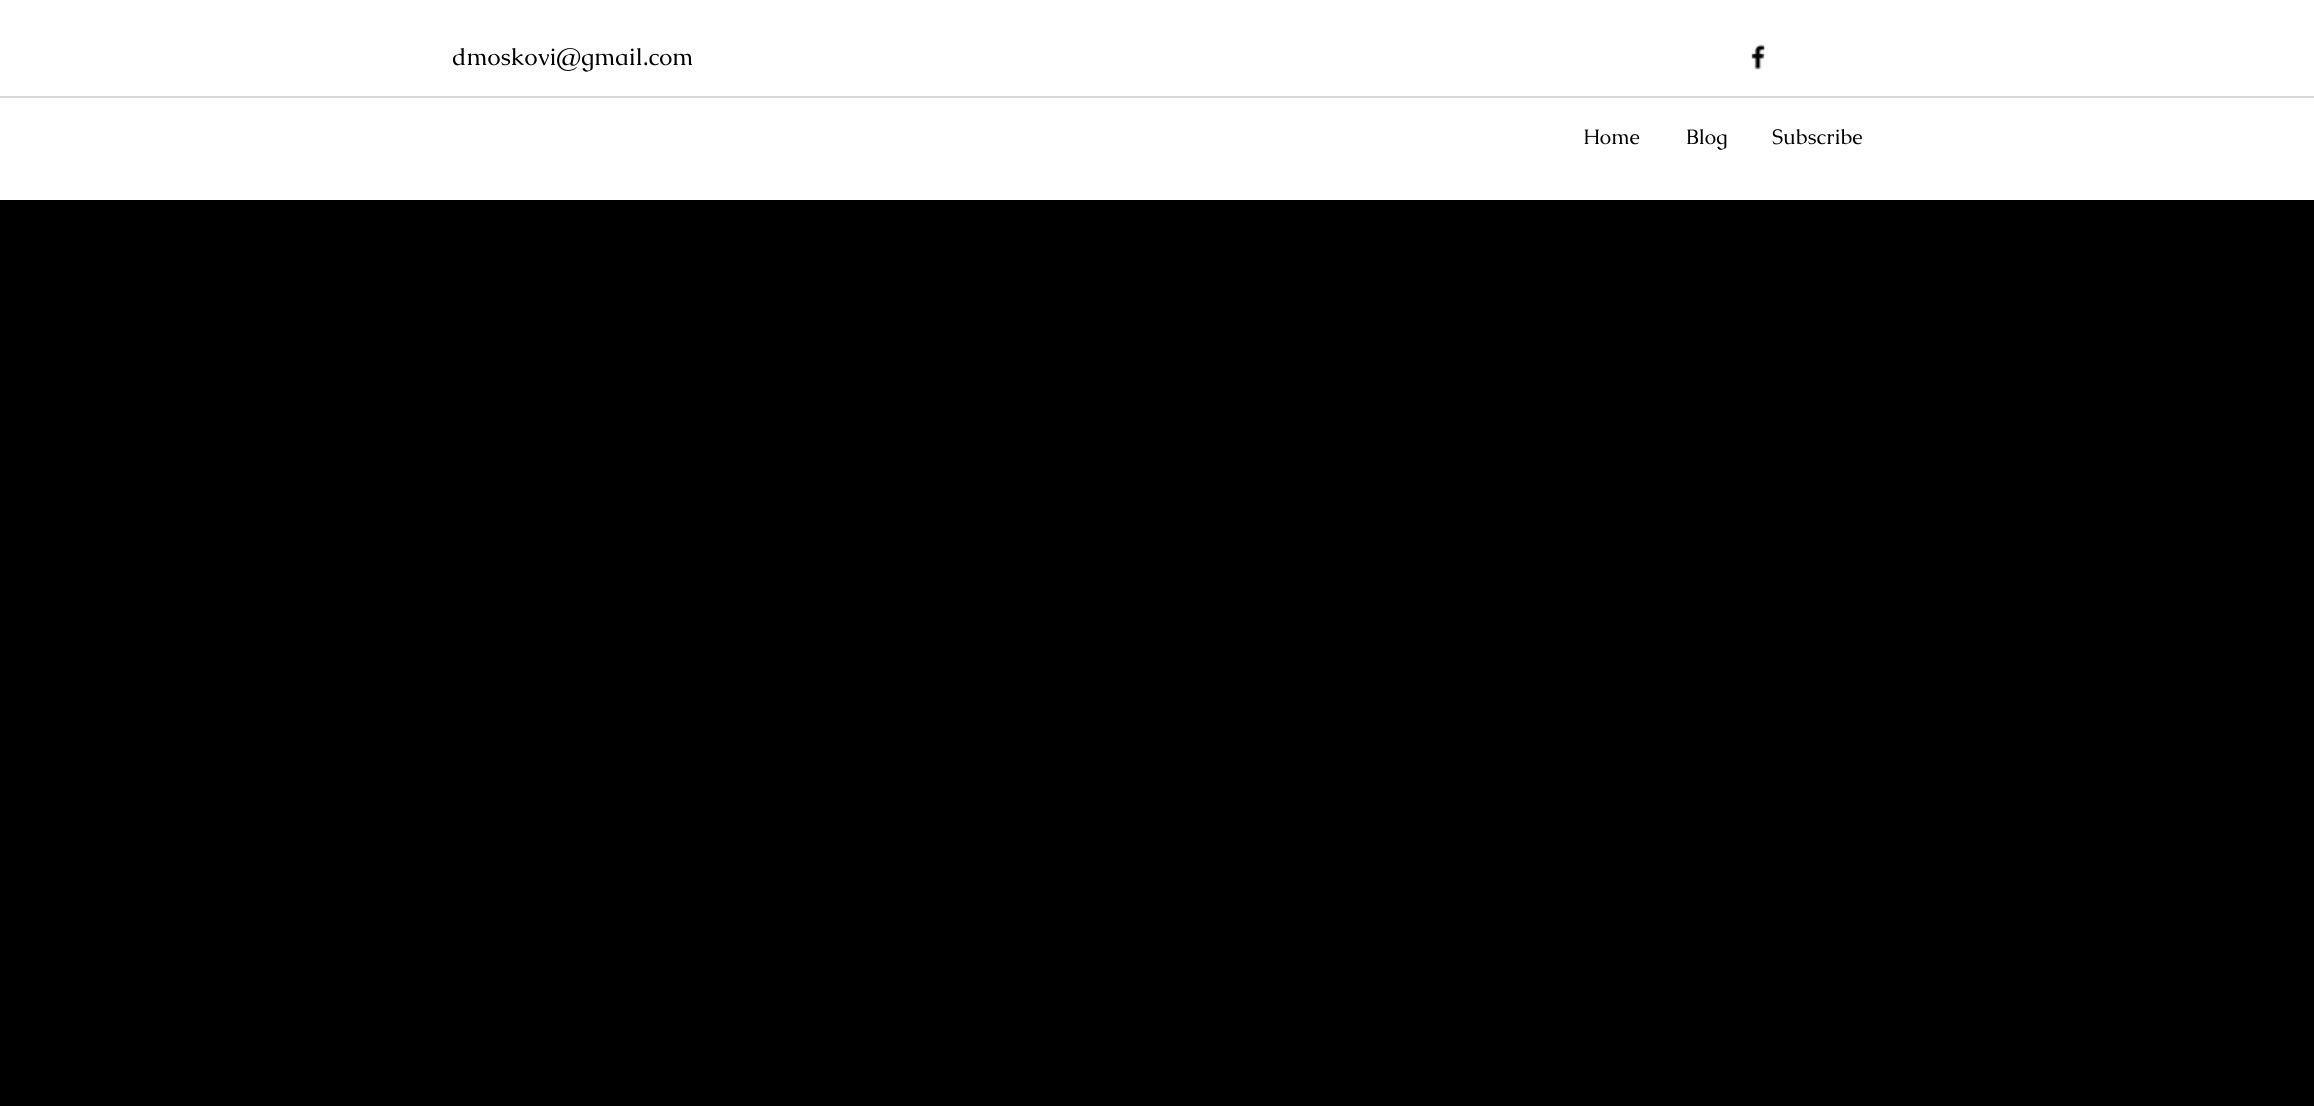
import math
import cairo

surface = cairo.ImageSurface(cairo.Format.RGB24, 2314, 1106)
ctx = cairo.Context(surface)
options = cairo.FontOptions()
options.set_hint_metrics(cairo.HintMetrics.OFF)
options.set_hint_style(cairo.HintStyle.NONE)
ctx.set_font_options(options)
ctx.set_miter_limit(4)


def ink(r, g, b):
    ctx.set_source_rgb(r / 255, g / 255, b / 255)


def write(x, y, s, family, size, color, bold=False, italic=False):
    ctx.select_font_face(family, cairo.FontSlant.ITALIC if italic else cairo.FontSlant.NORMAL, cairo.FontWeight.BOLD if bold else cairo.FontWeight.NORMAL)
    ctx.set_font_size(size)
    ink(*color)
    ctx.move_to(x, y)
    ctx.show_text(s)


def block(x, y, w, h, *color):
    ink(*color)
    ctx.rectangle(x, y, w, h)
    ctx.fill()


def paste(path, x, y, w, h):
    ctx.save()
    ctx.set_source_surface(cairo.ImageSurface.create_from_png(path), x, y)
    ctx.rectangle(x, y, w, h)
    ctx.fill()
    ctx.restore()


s1 = dict(family="Caudex", size=24, color=(0, 0, 0))
s2 = dict(family="Caudex", size=21, color=(0, 0, 0))

ink(255, 255, 255)
ctx.paint()
write(452, 65, "dmoskovi@gmail.com", **s1)
paste("pic1.png", 1751, 44, 14, 26)
block(0, 96, 2314, 2, 217, 217, 217)
write(1583, 144, "Home", **s2)
write(1686, 144, "Blog", **s2)
write(1772, 144, "Subscribe", **s2)
block(0, 200, 2314, 906, 0, 0, 0)
surface.write_to_png("screenshot.png")
